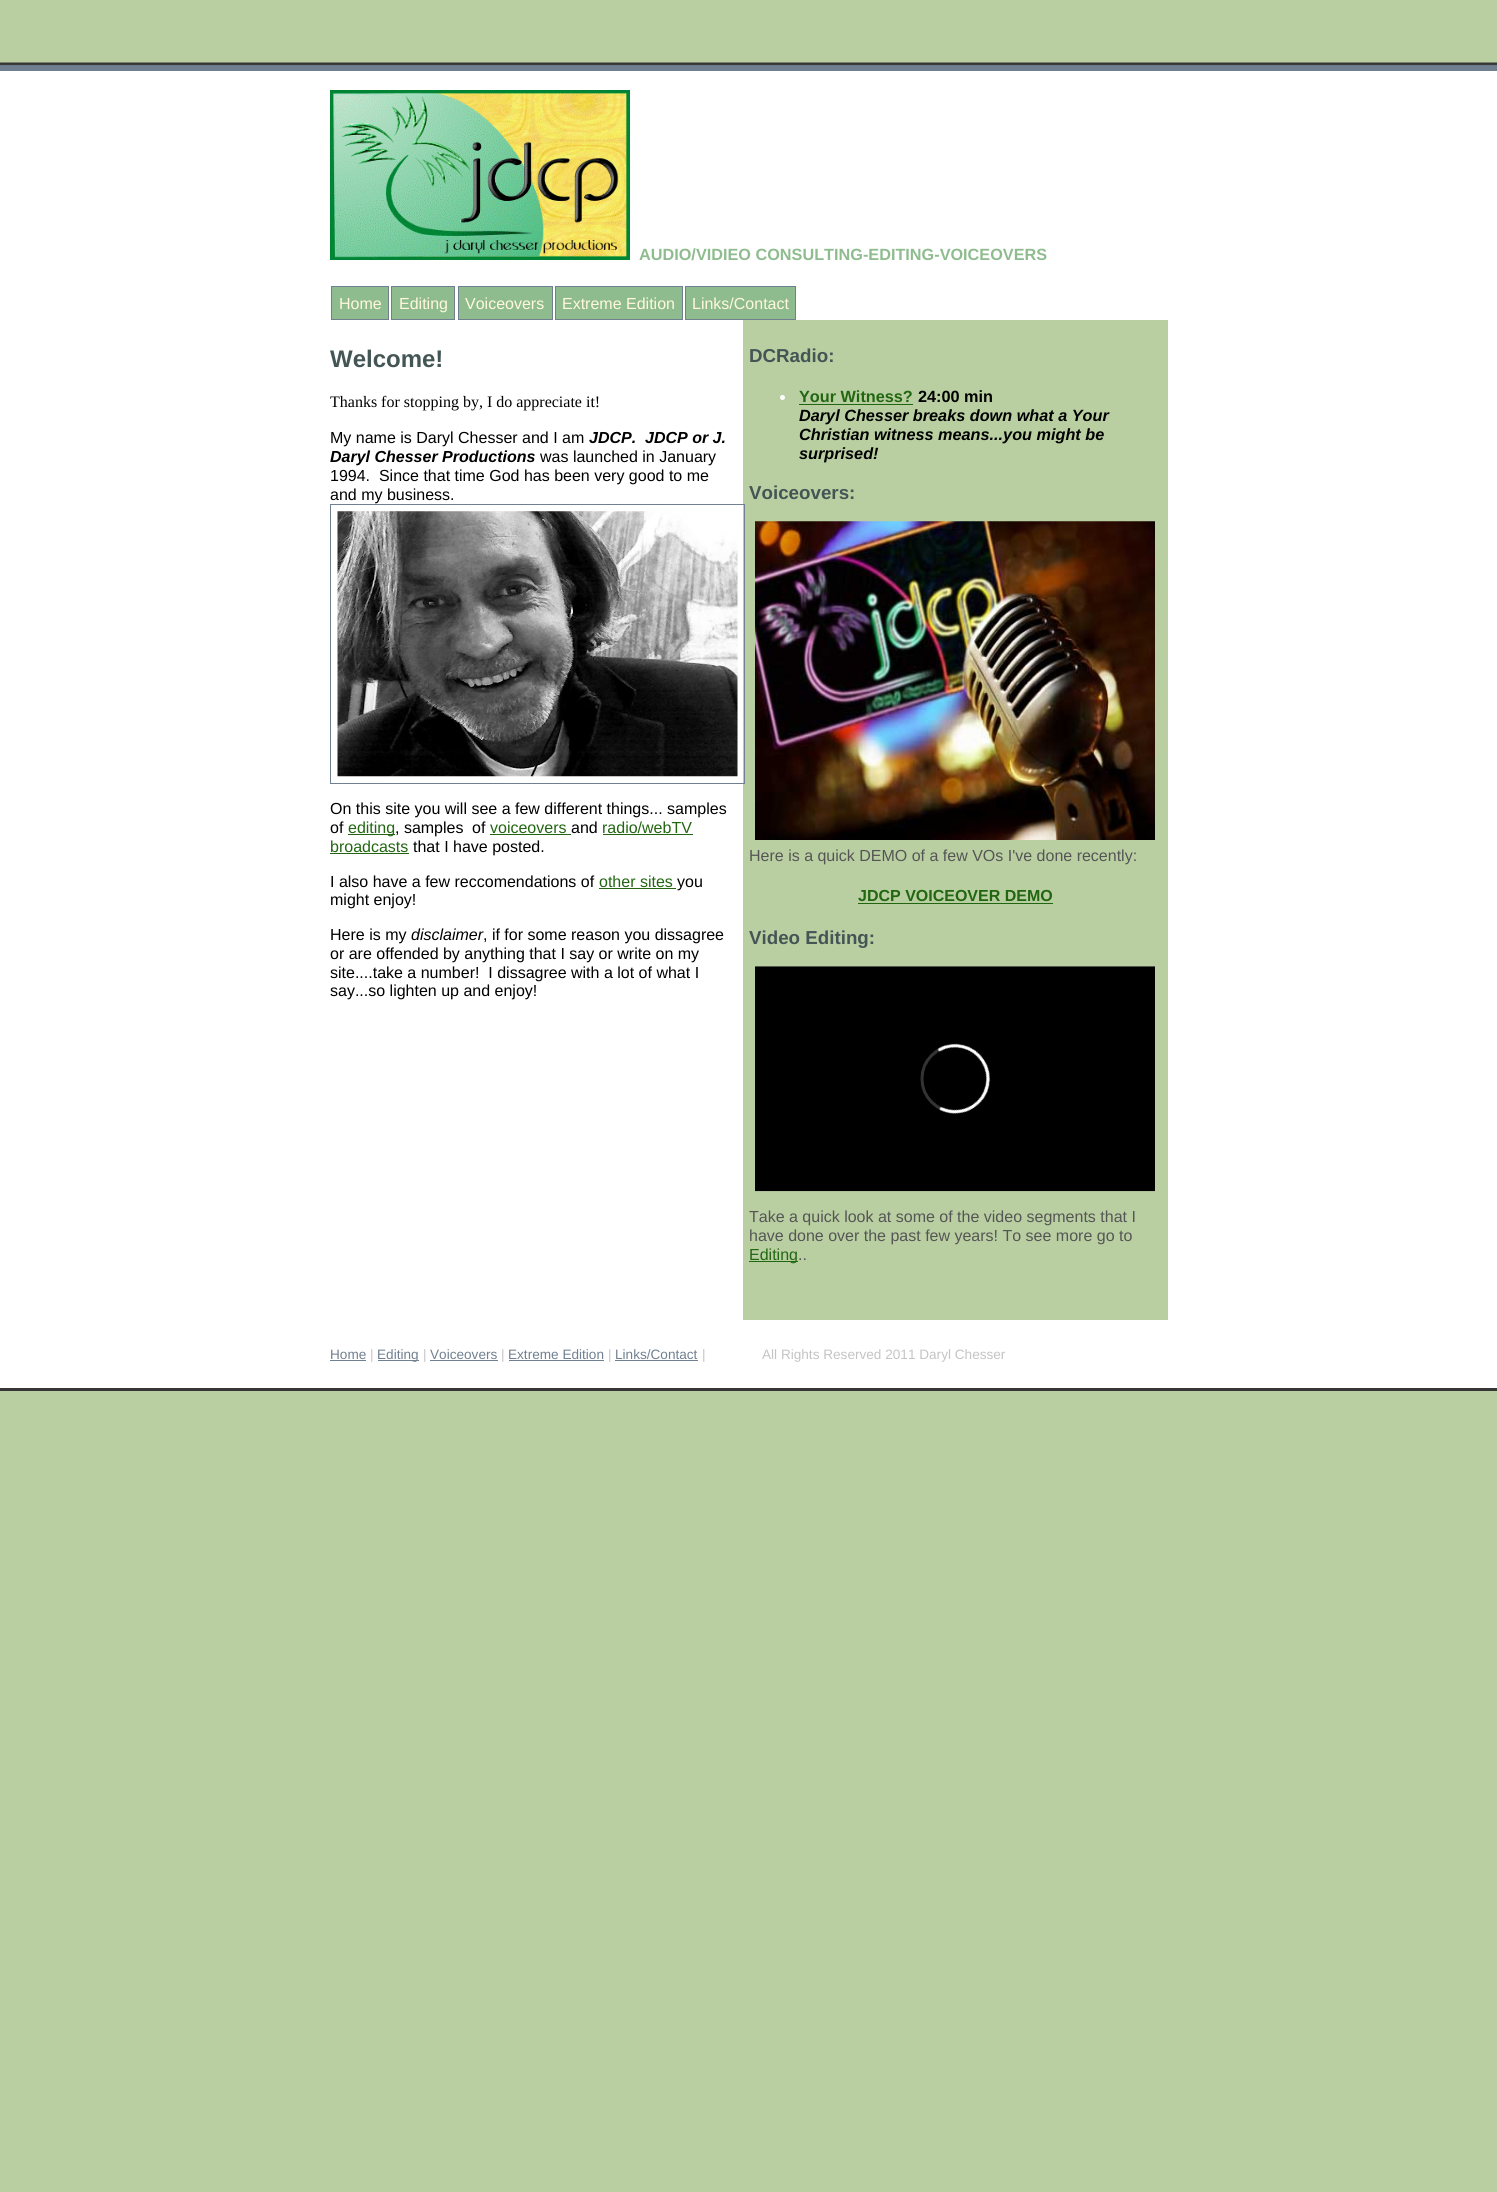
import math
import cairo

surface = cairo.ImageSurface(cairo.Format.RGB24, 1497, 2192)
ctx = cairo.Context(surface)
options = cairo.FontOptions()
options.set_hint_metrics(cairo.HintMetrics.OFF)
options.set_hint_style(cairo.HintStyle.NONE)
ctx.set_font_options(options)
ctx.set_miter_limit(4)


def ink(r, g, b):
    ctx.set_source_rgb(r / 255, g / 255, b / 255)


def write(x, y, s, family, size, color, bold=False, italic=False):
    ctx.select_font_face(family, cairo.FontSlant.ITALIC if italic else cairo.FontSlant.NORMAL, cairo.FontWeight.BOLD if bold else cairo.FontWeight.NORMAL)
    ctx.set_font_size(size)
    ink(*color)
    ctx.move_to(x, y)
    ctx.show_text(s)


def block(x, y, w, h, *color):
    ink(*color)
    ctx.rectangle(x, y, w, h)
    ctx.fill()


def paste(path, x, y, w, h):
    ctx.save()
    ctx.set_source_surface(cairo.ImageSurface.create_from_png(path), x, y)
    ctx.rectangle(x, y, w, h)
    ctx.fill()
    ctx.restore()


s1 = dict(family="Liberation Sans", size=16.25, color=(143, 188, 143), bold=True)
s2 = dict(family="Liberation Sans", size=16, color=(255, 248, 220))
s3 = dict(family="Liberation Sans", size=24, color=(68, 85, 85), bold=True)
s4 = dict(family="Liberation Serif", size=16, color=(0, 0, 0))
s5 = dict(family="Liberation Sans", size=16, color=(0, 0, 0))
s6 = dict(family="Liberation Sans", size=16, color=(0, 0, 0), bold=True, italic=True)
s7 = dict(family="Liberation Sans", size=16, color=(34, 102, 17))
s8 = dict(family="Liberation Sans", size=16, color=(0, 0, 0), italic=True)
s9 = dict(family="Liberation Sans", size=18.75, color=(68, 85, 85), bold=True)
s10 = dict(family="Liberation Sans", size=16.25, color=(34, 102, 17), bold=True)
s11 = dict(family="Liberation Sans", size=16.25, color=(0, 0, 0), bold=True)
s12 = dict(family="Liberation Sans", size=16.25, color=(0, 0, 0), bold=True, italic=True)
s13 = dict(family="Liberation Sans", size=16, color=(85, 85, 85))
s14 = dict(family="Liberation Sans", size=16, color=(34, 102, 17), bold=True)
s15 = dict(family="Liberation Sans", size=13.6, color=(112, 128, 144))
s16 = dict(family="Liberation Sans", size=13.6, color=(196, 196, 196))

ink(185, 207, 161)
ctx.paint()
paste("pic1.png", 0, 62, 1497, 9)
block(0, 71, 1497, 1317, 255, 255, 255)
block(0, 1388, 1497, 3, 54, 54, 54)
paste("pic2.png", 330, 90, 300, 170)
write(639, 260, "AUDIO/VIDIEO CONSULTING-EDITING-VOICEOVERS", **s1)
ctx.rectangle(331.5, 286.5, 57, 33)
ctx.fill_preserve()
ink(112, 128, 144)
ctx.set_line_width(1)
ctx.stroke()
write(339, 309, "Home", **s2)
ink(143, 188, 143)
ctx.rectangle(391.5, 286.5, 63, 33)
ctx.fill_preserve()
ink(112, 128, 144)
ctx.stroke()
write(399, 309, "Editing", **s2)
ink(143, 188, 143)
ctx.rectangle(458.5, 286.5, 94, 33)
ctx.fill_preserve()
ink(112, 128, 144)
ctx.stroke()
write(465, 309, "Voiceovers", **s2)
ink(143, 188, 143)
ctx.rectangle(555.5, 286.5, 127, 33)
ctx.fill_preserve()
ink(112, 128, 144)
ctx.stroke()
write(562, 309, "Extreme Edition", **s2)
ink(143, 188, 143)
ctx.rectangle(685.5, 286.5, 110, 33)
ctx.fill_preserve()
ink(112, 128, 144)
ctx.stroke()
write(692, 309, "Links/Contact", **s2)
write(330, 367, "Welcome!", **s3)
write(330, 407, "Thanks for stopping by, I do appreciate it!", **s4)
write(330, 443, "My name is Daryl Chesser and I am", **s5)
write(589, 443, "JDCP.", **s6)
write(645, 443, "JDCP or J.", **s6)
write(330, 462, "Daryl Chesser Productions", **s6)
write(540, 462, "was launched in January", **s5)
write(330, 481, "1994.  Since that time God has been very good to me", **s5)
write(330, 500, "and my business.", **s5)
block(743, 320, 425, 1000, 185, 207, 161)
ctx.rectangle(330.5, 504.5, 414, 279)
ink(112, 128, 144)
ctx.stroke()
paste("pic3.png", 337, 511, 401, 266)
write(330, 814, "On this site you will see a few different things... samples", **s5)
write(330, 833, "of", **s5)
block(348, 834, 47, 1, 34, 102, 17)
write(348, 833, "editing", **s7)
write(395, 833, ", samples", **s5)
write(472, 833, "of", **s5)
write(490, 833, "voiceovers", **s7)
block(490, 834, 81, 1, 34, 102, 17)
write(571, 833, "and", **s5)
write(602, 833, "radio/webTV", **s7)
block(603, 834, 90, 1, 34, 102, 17)
write(330, 852, "broadcasts", **s7)
block(330, 853, 79, 1, 34, 102, 17)
write(413, 852, "that I have posted.", **s5)
write(330, 887, "I also have a few reccomendations of", **s5)
write(599, 887, "other sites", **s7)
block(599, 888, 77, 1, 34, 102, 17)
write(677, 887, "you", **s5)
write(330, 905, "might enjoy!", **s5)
write(330, 940, "Here is my", **s5)
write(411, 940, "disclaimer", **s8)
write(483, 940, ", if for some reason you dissagree", **s5)
write(330, 959, "or are offended by anything that I say or write on my", **s5)
write(330, 978, "site....take a number!  I dissagree with a lot of what I", **s5)
write(330, 996, "say...so lighten up and enjoy!", **s5)
write(749, 362, "DCRadio:", **s9)
ink(255, 255, 255)
ctx.new_path()
ctx.arc(782.5, 397.5, 2.5, 0, 2 * math.pi)
ctx.fill()
write(799, 402, "Your Witness?", **s10)
block(799, 404, 114, 1, 34, 102, 17)
write(918, 402, "24:00 min", **s11)
write(799, 421, "Daryl Chesser breaks down what a Your", **s12)
write(799, 440, "Christian witness means...you might be", **s12)
write(799, 459, "surprised!", **s12)
write(749, 499, "Voiceovers:", **s9)
paste("pic4.png", 755, 521, 400, 319)
write(749, 861, "Here is a quick DEMO of a few VOs I've done recently:", **s13)
write(858, 901, "JDCP VOICEOVER DEMO", **s14)
block(858, 903, 195, 1, 34, 102, 17)
write(749, 944, "Video Editing:", **s9)
paste("pic5.png", 755, 966, 400, 226)
write(749, 1222, "Take a quick look at some of the video segments that I", **s13)
write(749, 1241, "have done over the past few years! To see more go to", **s13)
block(749, 1261, 49, 1, 34, 102, 17)
write(749, 1260, "Editing", **s7)
write(798, 1260, "..", **s13)
write(330, 1359, "Home", **s15)
block(330, 1360, 36, 1, 112, 128, 144)
write(370, 1359, "|", **s16)
block(378, 1360, 41, 1, 112, 128, 144)
write(377, 1359, "Editing", **s15)
write(423, 1359, "|", **s16)
write(430, 1359, "Voiceovers", **s15)
block(430, 1360, 68, 1, 112, 128, 144)
write(501, 1359, "|", **s16)
write(508, 1359, "Extreme Edition", **s15)
block(509, 1360, 95, 1, 112, 128, 144)
write(608, 1359, "|", **s16)
write(615, 1359, "Links/Contact", **s15)
block(615, 1360, 83, 1, 112, 128, 144)
write(702, 1359, "|", **s16)
write(762, 1359, "All Rights Reserved 2011 Daryl Chesser", **s16)
surface.write_to_png("screenshot.png")
